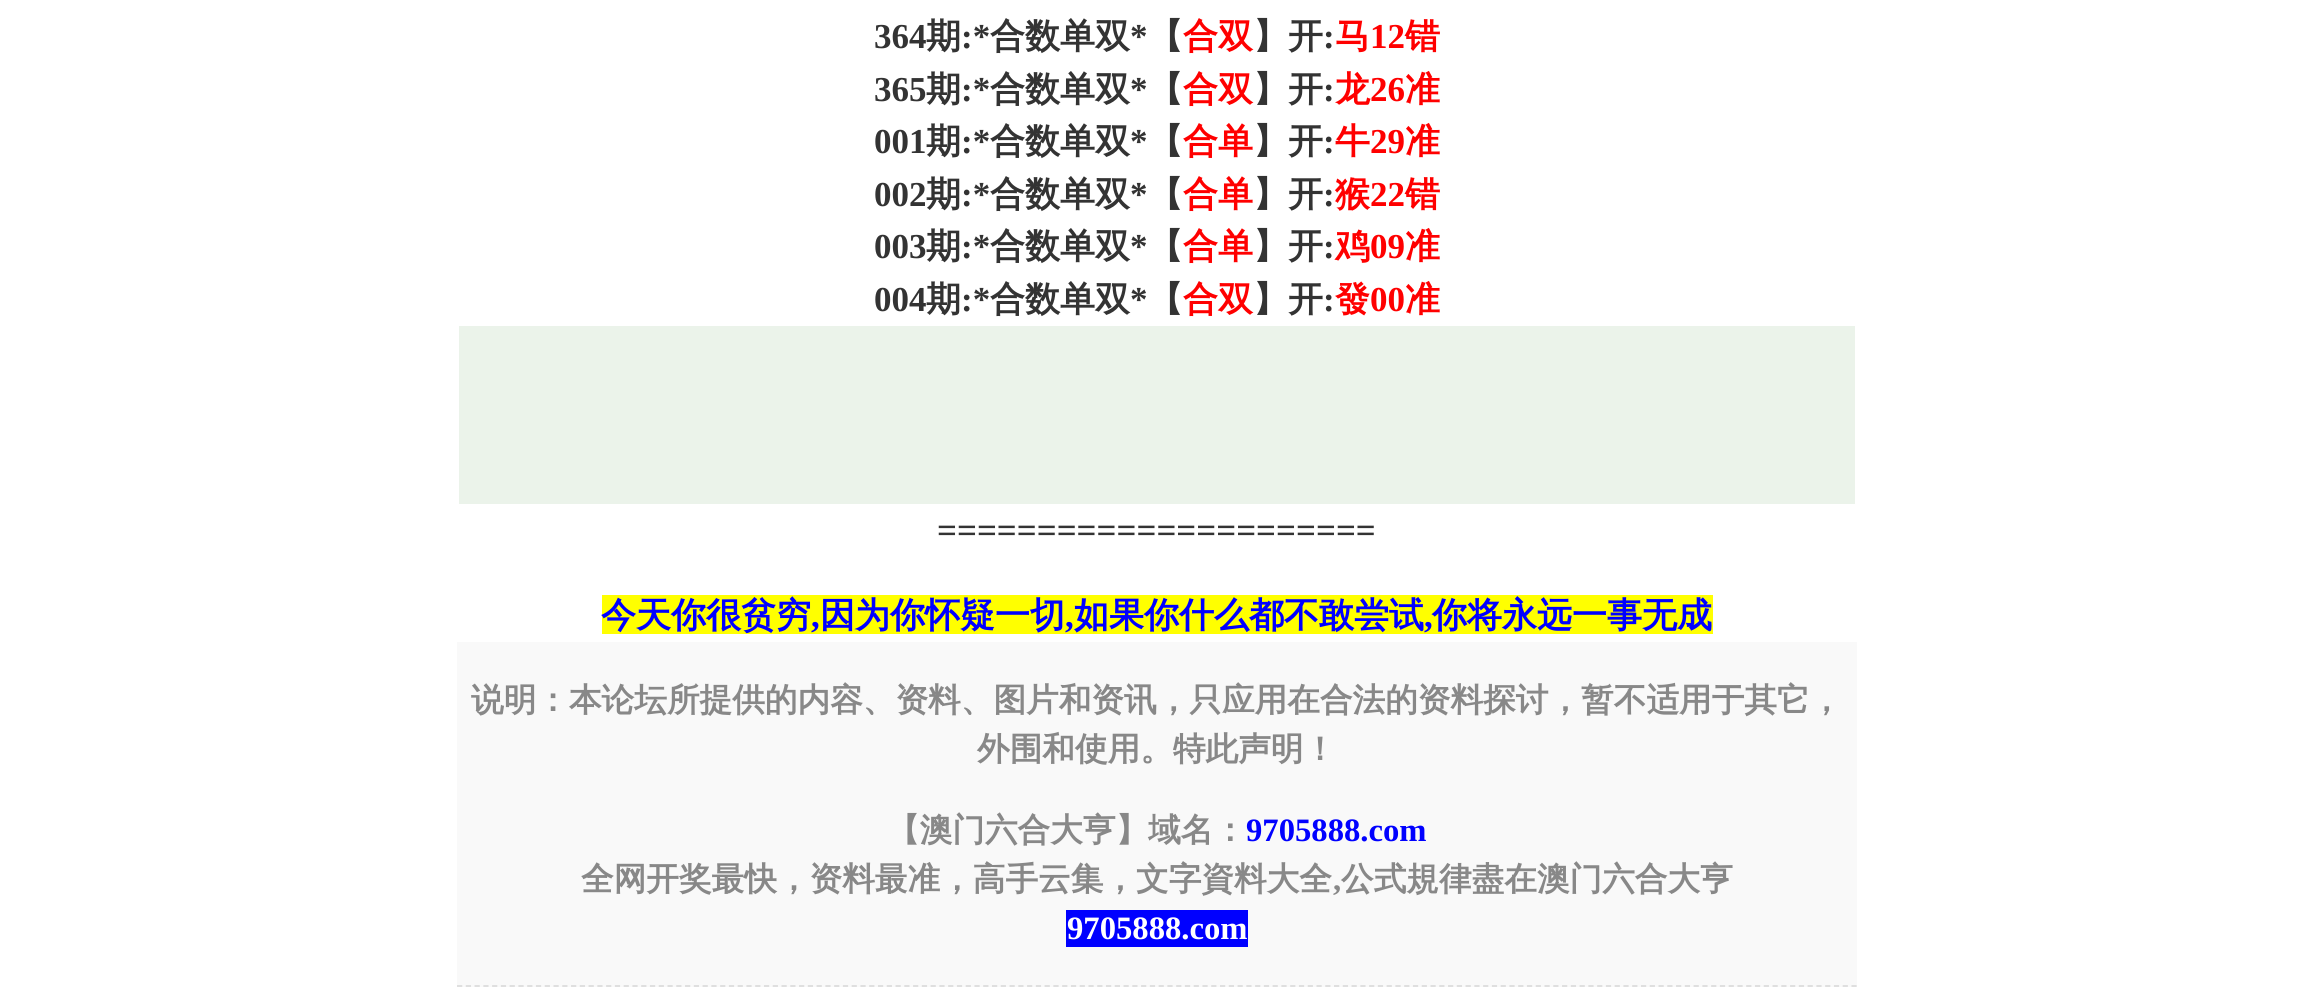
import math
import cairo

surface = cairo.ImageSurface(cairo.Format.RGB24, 2312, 987)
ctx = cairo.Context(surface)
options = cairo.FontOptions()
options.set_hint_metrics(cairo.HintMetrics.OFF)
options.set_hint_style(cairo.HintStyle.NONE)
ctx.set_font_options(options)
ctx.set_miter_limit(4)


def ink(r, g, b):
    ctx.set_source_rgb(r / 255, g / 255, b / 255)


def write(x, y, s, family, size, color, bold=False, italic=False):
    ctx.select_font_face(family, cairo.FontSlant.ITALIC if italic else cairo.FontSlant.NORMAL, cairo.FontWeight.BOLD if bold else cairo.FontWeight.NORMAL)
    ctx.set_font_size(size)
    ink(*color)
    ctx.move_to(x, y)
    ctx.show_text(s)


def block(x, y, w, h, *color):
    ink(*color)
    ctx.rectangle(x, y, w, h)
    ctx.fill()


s1 = dict(family="Liberation Serif", size=35, color=(51, 51, 51), bold=True)
s2 = dict(family="WenQuanYi Zen Hei", size=35, color=(51, 51, 51), bold=True)
s3 = dict(family="WenQuanYi Zen Hei", size=35, color=(255, 0, 0), bold=True)
s4 = dict(family="Liberation Serif", size=35, color=(255, 0, 0), bold=True)
s5 = dict(family="WenQuanYi Zen Hei", size=35, color=(0, 0, 255), bold=True)
s6 = dict(family="Liberation Serif", size=35, color=(0, 0, 255), bold=True)
s7 = dict(family="WenQuanYi Zen Hei", size=32.65, color=(136, 136, 136), bold=True)
s8 = dict(family="Liberation Serif", size=32.65, color=(0, 0, 255), bold=True)
s9 = dict(family="Liberation Serif", size=32.65, color=(136, 136, 136), bold=True)
s10 = dict(family="Liberation Serif", size=32.65, color=(255, 255, 255), bold=True)

ink(255, 255, 255)
ctx.paint()
block(457, 642, 1400, 345, 249, 249, 249)
ctx.new_path()
ctx.move_to(457, 986)
ctx.line_to(1857, 986)
ink(221, 221, 221)
ctx.set_line_width(1.8)
ctx.set_dash([5.25, 3.52])
ctx.stroke()
write(874, 48, "364", **s1)
write(926, 48, "期", **s2)
write(961, 48, ":*", **s1)
write(990, 48, "合数单双", **s2)
write(1130, 48, "*", **s1)
write(1148, 48, "【", **s2)
write(1183, 48, "合双", **s3)
write(1253, 48, "】开", **s2)
write(1323, 48, ":", **s1)
write(1335, 48, "马", **s3)
write(1370, 48, "12", **s4)
write(1405, 48, "错", **s3)
write(874, 101, "365", **s1)
write(926, 101, "期", **s2)
write(961, 101, ":*", **s1)
write(990, 101, "合数单双", **s2)
write(1130, 101, "*", **s1)
write(1148, 101, "【", **s2)
write(1183, 101, "合双", **s3)
write(1253, 101, "】开", **s2)
write(1323, 101, ":", **s1)
write(1335, 101, "龙", **s3)
write(1370, 101, "26", **s4)
write(1405, 101, "准", **s3)
write(874, 153, "001", **s1)
write(926, 153, "期", **s2)
write(961, 153, ":*", **s1)
write(990, 153, "合数单双", **s2)
write(1130, 153, "*", **s1)
write(1148, 153, "【", **s2)
write(1183, 153, "合单", **s3)
write(1253, 153, "】开", **s2)
write(1323, 153, ":", **s1)
write(1335, 153, "牛", **s3)
write(1370, 153, "29", **s4)
write(1405, 153, "准", **s3)
write(874, 206, "002", **s1)
write(926, 206, "期", **s2)
write(961, 206, ":*", **s1)
write(990, 206, "合数单双", **s2)
write(1130, 206, "*", **s1)
write(1148, 206, "【", **s2)
write(1183, 206, "合单", **s3)
write(1253, 206, "】开", **s2)
write(1323, 206, ":", **s1)
write(1335, 206, "猴", **s3)
write(1370, 206, "22", **s4)
write(1405, 206, "错", **s3)
write(874, 258, "003", **s1)
write(926, 258, "期", **s2)
write(961, 258, ":*", **s1)
write(990, 258, "合数单双", **s2)
write(1130, 258, "*", **s1)
write(1148, 258, "【", **s2)
write(1183, 258, "合单", **s3)
write(1253, 258, "】开", **s2)
write(1323, 258, ":", **s1)
write(1335, 258, "鸡", **s3)
write(1370, 258, "09", **s4)
write(1405, 258, "准", **s3)
write(874, 311, "004", **s1)
write(926, 311, "期", **s2)
write(961, 311, ":*", **s1)
write(990, 311, "合数单双", **s2)
write(1130, 311, "*", **s1)
write(1148, 311, "【", **s2)
write(1183, 311, "合双", **s3)
write(1253, 311, "】开", **s2)
write(1323, 311, ":", **s1)
write(1335, 311, "發", **s3)
write(1370, 311, "00", **s4)
write(1405, 311, "准", **s3)
block(459, 326, 1396, 178, 235, 243, 234)
write(937, 542, "======================", **s1)
block(602, 595, 1111, 39, 255, 255, 0)
write(601, 627, "今天你很贫穷", **s5)
write(811, 627, ",", **s6)
write(820, 627, "因为你怀疑一切", **s5)
write(1065, 627, ",", **s6)
write(1074, 627, "如果你什么都不敢尝试", **s5)
write(1424, 627, ",", **s6)
write(1432, 627, "你将永远一事无成", **s5)
write(471, 711, "说明：本论坛所提供的内容、资料、图片和资讯，只应用在合法的资料探讨，暂不适用于其它，", **s7)
write(977, 760, "外围和使用。特此声明！", **s7)
write(887, 841, "【澳门六合大亨】域名：", **s7)
write(1246, 841, "9705888.com", **s8)
write(581, 890, "全网开奖最快，资料最准，高手云集，文字資料大全", **s7)
write(1333, 890, ",", **s9)
write(1341, 890, "公式規律盡在澳门六合大亨", **s7)
block(1066, 910, 182, 37, 0, 0, 255)
write(1067, 939, "9705888.com", **s10)
surface.write_to_png("screenshot.png")
